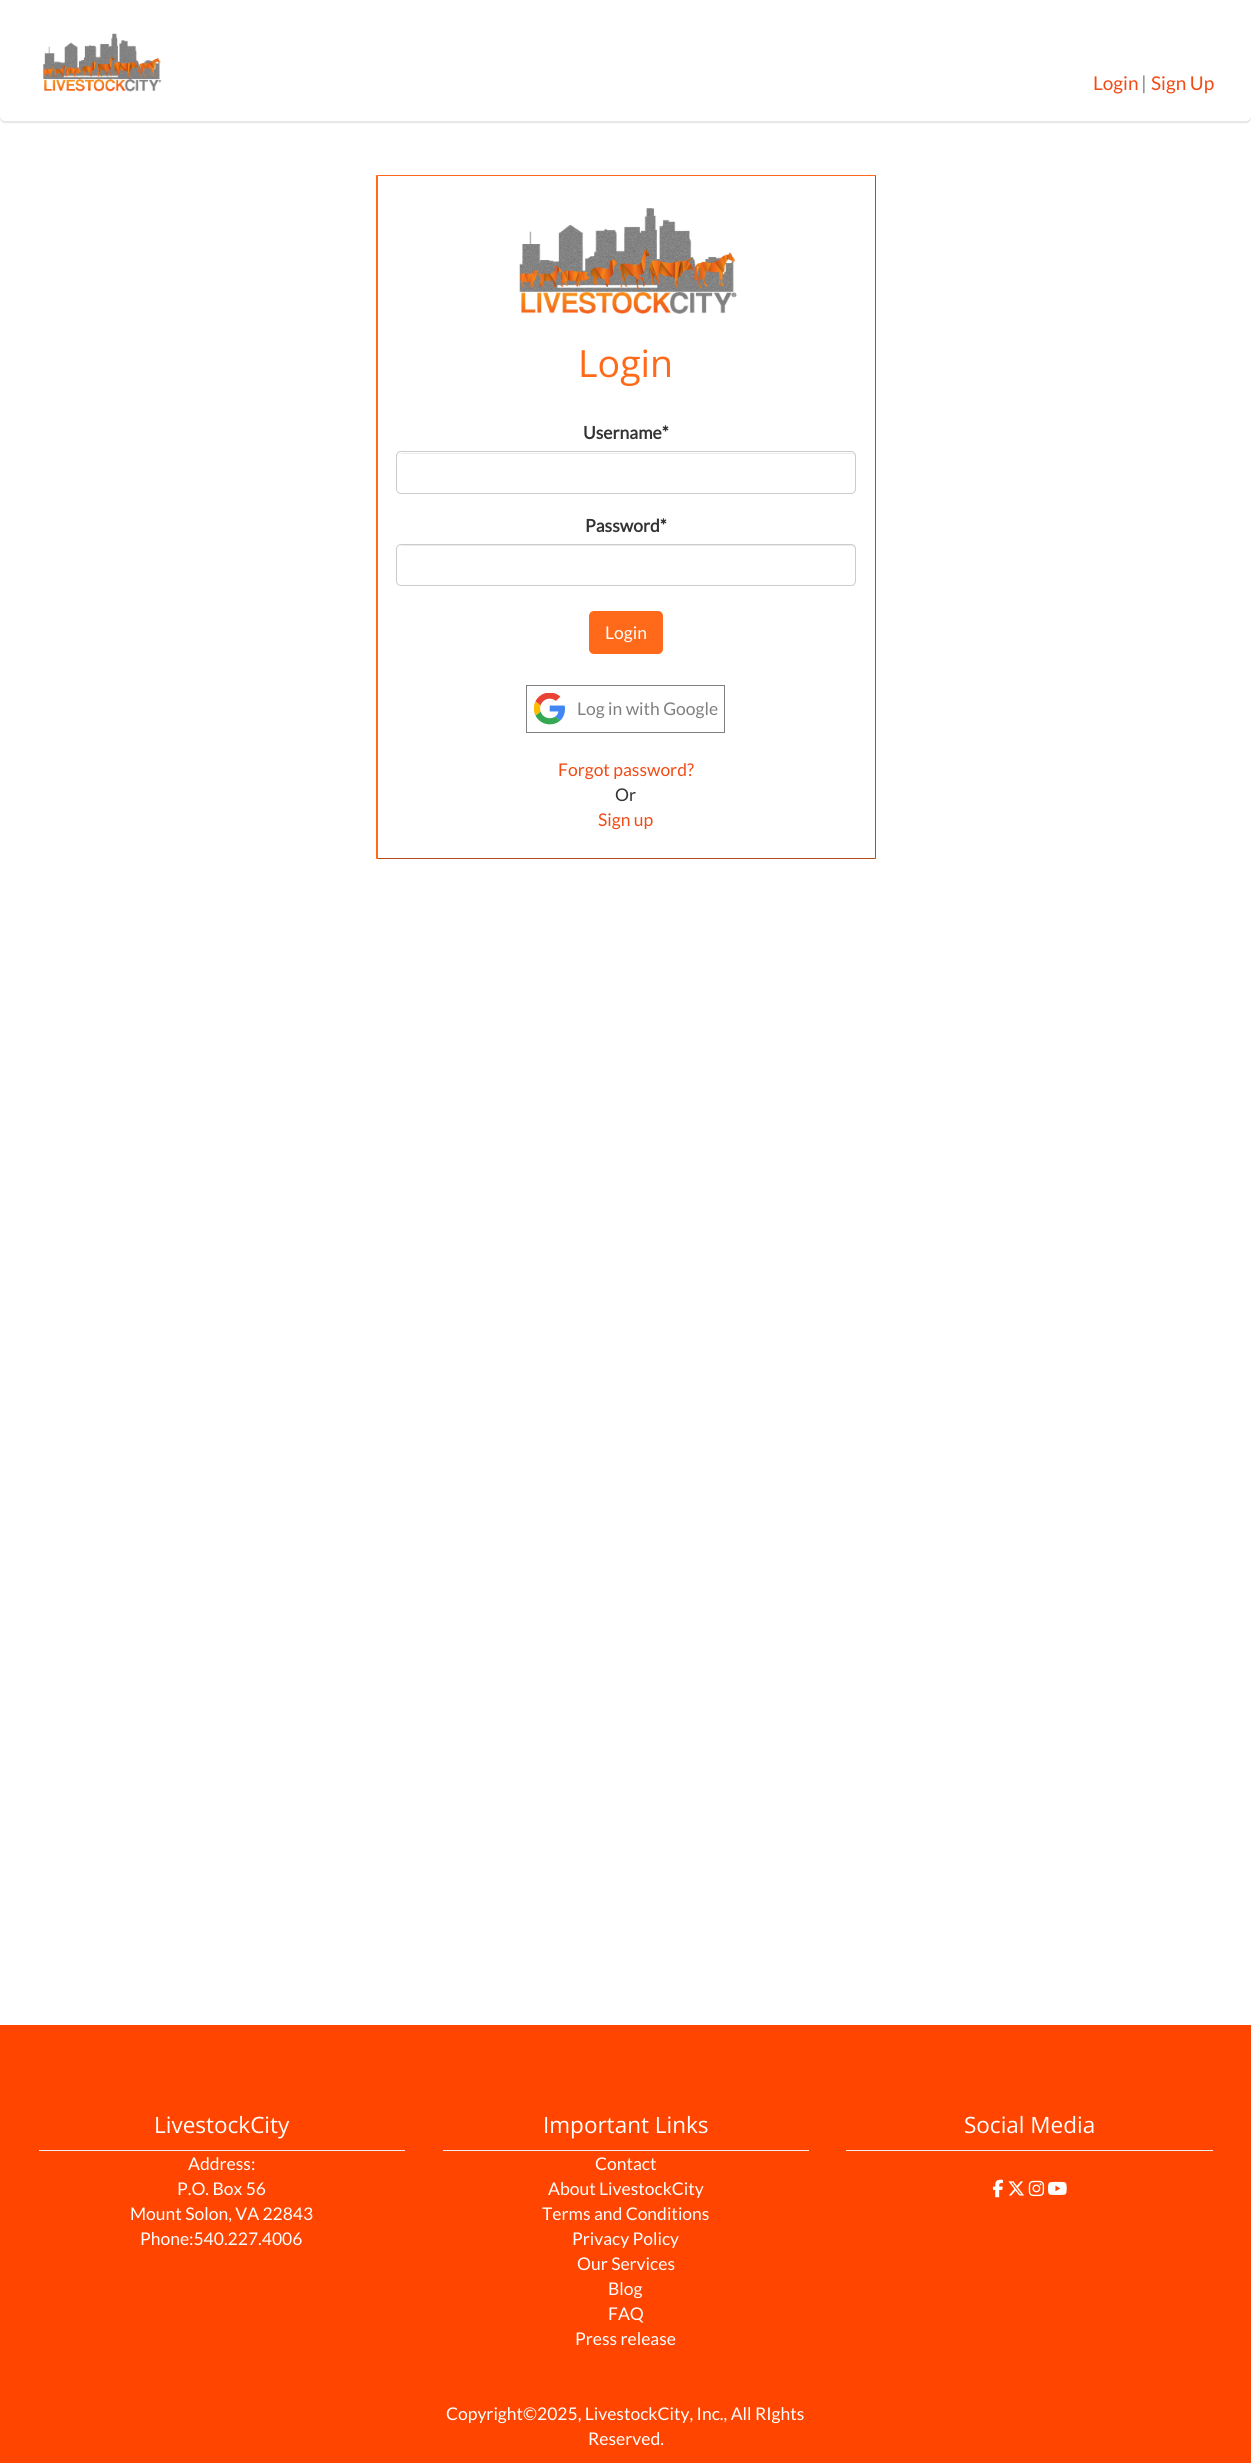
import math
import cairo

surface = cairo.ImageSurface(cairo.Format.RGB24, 1251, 2463)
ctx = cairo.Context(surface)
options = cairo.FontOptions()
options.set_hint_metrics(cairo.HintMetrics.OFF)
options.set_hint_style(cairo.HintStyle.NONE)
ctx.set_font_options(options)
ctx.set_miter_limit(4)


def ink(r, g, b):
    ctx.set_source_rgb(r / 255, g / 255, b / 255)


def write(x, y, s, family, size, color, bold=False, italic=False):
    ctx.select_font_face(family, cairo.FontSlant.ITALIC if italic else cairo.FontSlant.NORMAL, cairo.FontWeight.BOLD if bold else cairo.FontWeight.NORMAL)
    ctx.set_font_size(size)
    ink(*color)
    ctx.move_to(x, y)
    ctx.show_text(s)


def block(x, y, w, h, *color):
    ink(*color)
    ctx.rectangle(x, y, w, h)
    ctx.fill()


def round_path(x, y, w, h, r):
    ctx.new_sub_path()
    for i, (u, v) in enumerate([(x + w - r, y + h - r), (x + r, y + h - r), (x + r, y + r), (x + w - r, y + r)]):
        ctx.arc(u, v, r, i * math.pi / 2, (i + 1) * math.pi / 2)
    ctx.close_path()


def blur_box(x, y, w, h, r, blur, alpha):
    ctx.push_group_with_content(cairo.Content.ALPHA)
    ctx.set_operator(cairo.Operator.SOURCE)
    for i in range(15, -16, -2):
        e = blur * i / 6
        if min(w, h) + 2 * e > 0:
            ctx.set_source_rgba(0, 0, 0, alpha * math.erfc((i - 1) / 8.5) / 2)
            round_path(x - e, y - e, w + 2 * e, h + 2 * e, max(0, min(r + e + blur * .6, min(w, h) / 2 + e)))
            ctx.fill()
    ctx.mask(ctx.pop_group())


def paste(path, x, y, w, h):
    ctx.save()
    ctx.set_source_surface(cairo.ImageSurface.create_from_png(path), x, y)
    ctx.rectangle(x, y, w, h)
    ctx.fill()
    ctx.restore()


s1 = dict(family="Lato", size=19, color=(241, 75, 21))
s2 = dict(family="Lato", size=19, color=(128, 128, 128))
s3 = dict(family="Open Sans", size=37.5, color=(255, 106, 26))
s4 = dict(family="Lato", size=17.5, color=(51, 51, 51), bold=True)
s5 = dict(family="Lato", size=17.5, color=(255, 255, 255))
s6 = dict(family="Lato", size=17.5, color=(128, 128, 128))
s7 = dict(family="Lato", size=17.5, color=(241, 75, 21))
s8 = dict(family="Lato", size=17.5, color=(51, 51, 51))
s9 = dict(family="Open Sans", size=22.5, color=(255, 255, 255))

ink(255, 255, 255)
ctx.paint()
ink(0, 0, 0)
blur_box(0, 1, 1251, 122, 5, 0.5, 0.1)
ink(255, 255, 255)
round_path(0, 0, 1251, 121, 5)
ctx.fill()
paste("pic1.png", 43, 33, 119, 59)
write(1093, 90, "Login", **s1)
write(1141, 90, "|", **s2)
write(1151, 90, "Sign Up", **s1)
ink(255, 106, 26)
ctx.new_path()
ctx.move_to(376, 175)
ctx.line_to(876, 175)
ctx.line_to(875, 176)
ctx.line_to(378, 176)
ctx.close_path()
ctx.fill()
ctx.set_source_rgba(0.667, 0.231, 0, 0.9)
ctx.new_path()
ctx.move_to(876, 175)
ctx.line_to(876, 859)
ctx.line_to(875, 858)
ctx.line_to(875, 176)
ctx.close_path()
ctx.fill()
ctx.new_path()
ctx.move_to(876, 859)
ctx.line_to(376, 859)
ctx.line_to(378, 858)
ctx.line_to(875, 858)
ctx.close_path()
ctx.fill()
ctx.set_source_rgba(1, 0.349, 0, 0.9)
ctx.new_path()
ctx.move_to(376, 859)
ctx.line_to(376, 175)
ctx.line_to(378, 176)
ctx.line_to(378, 858)
ctx.close_path()
ctx.fill()
paste("pic2.png", 519, 208, 218, 106)
write(578, 377, "Login", **s3)
write(583, 439, "Username*", **s4)
ink(236, 236, 236)
ctx.new_path()
ctx.move_to(401, 454)
ctx.line_to(851, 454)
ctx.curve_to(853, 454, 855, 455, 855, 458)
ctx.curve_to(855, 455, 854, 453, 851, 453)
ctx.line_to(402, 453)
ctx.line_to(400, 454)
ctx.line_to(399, 455)
ctx.line_to(398, 458)
ctx.curve_to(398, 455, 399, 454, 401, 454)
ctx.close_path()
ctx.fill()
round_path(396.5, 451.5, 459, 42, 4.5)
ink(204, 204, 204)
ctx.set_line_width(1)
ctx.stroke()
write(585, 532, "Password*", **s4)
ink(236, 236, 236)
ctx.new_path()
ctx.move_to(401, 546)
ctx.line_to(851, 546)
ctx.curve_to(853, 546, 855, 548, 855, 550)
ctx.curve_to(855, 547, 854, 545, 851, 545)
ctx.line_to(402, 545)
ctx.line_to(400, 546)
ctx.line_to(399, 547)
ctx.line_to(398, 550)
ctx.curve_to(398, 548, 399, 546, 401, 546)
ctx.close_path()
ctx.fill()
round_path(396.5, 544.5, 459, 41, 4.5)
ink(204, 204, 204)
ctx.stroke()
ink(255, 106, 26)
round_path(589, 611, 74, 43, 5)
ctx.fill()
write(605, 639, "Login", **s5)
ctx.rectangle(526.5, 685.5, 198, 47)
ink(128, 128, 128)
ctx.stroke()
paste("pic3.png", 534, 693, 31, 32)
write(577, 715, "Log in with Google", **s6)
write(558, 776, "Forgot password?", **s7)
write(615, 801, "Or", **s8)
write(598, 826, "Sign up", **s7)
block(0, 2025, 1251, 438, 255, 69, 0)
write(154, 2133, "LivestockCity", **s9)
block(39, 2150, 366, 1, 238, 238, 238)
write(188, 2170, "Address:", **s5)
write(177, 2195, "P.O. Box 56", **s5)
write(130, 2220, "Mount Solon, VA 22843", **s5)
write(140, 2245, "Phone:540.227.4006", **s5)
write(543, 2133, "Important Links", **s9)
block(443, 2150, 366, 1, 238, 238, 238)
write(595, 2170, "Contact", **s5)
write(548, 2195, "About LivestockCity", **s5)
write(542, 2220, "Terms and Conditions", **s5)
write(572, 2245, "Privacy Policy", **s5)
write(577, 2270, "Our Services", **s5)
write(608, 2295, "Blog", **s5)
write(608, 2320, "FAQ", **s5)
write(575, 2345, "Press release", **s5)
write(446, 2420, "Copyright©2025, LivestockCity, Inc., All RIghts", **s5)
write(588, 2445, "Reserved.", **s5)
write(964, 2133, "Social Media", **s9)
block(846, 2150, 367, 1, 238, 238, 238)
paste("pic4.png", 992, 2179, 11, 19)
paste("pic5.png", 1008, 2181, 16, 15)
paste("pic6.png", 1028, 2180, 17, 17)
paste("pic7.png", 1048, 2181, 19, 14)
surface.write_to_png("screenshot.png")
